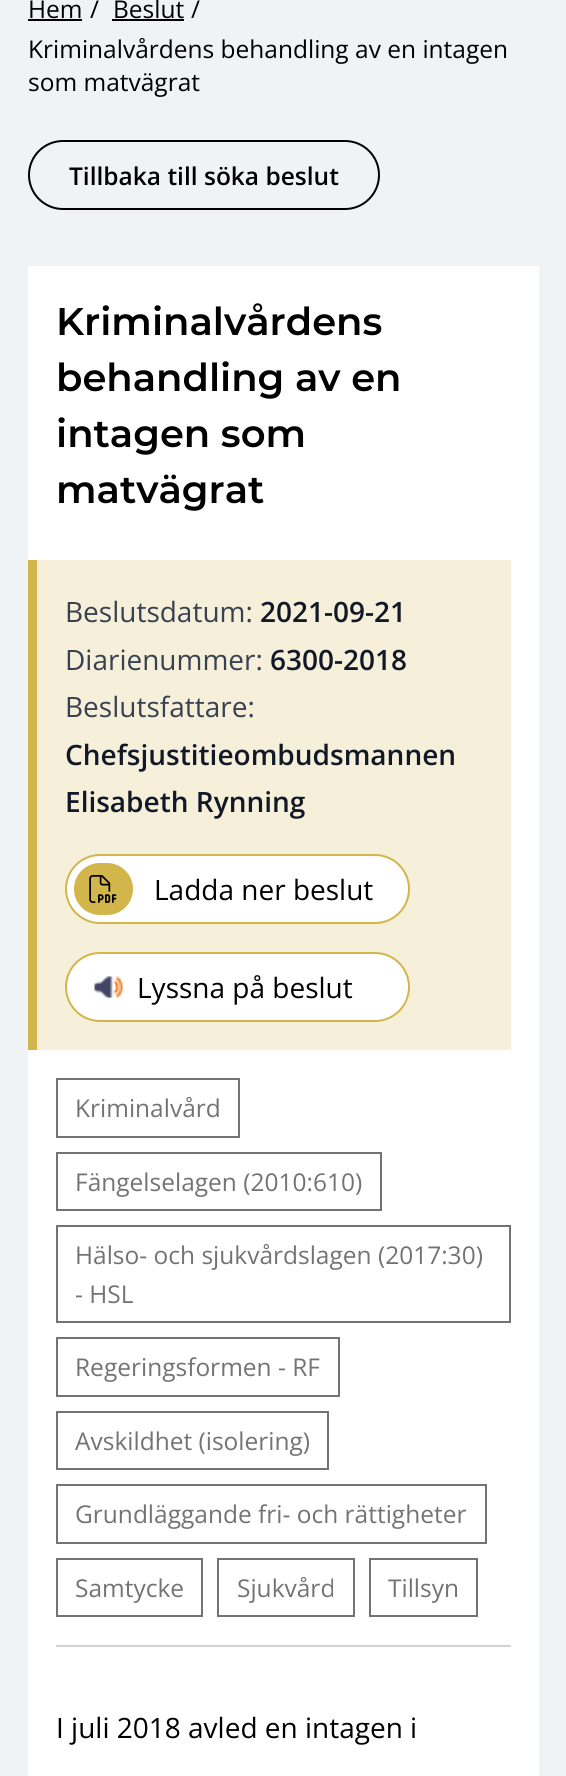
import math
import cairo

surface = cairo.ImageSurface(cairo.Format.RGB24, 566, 1776)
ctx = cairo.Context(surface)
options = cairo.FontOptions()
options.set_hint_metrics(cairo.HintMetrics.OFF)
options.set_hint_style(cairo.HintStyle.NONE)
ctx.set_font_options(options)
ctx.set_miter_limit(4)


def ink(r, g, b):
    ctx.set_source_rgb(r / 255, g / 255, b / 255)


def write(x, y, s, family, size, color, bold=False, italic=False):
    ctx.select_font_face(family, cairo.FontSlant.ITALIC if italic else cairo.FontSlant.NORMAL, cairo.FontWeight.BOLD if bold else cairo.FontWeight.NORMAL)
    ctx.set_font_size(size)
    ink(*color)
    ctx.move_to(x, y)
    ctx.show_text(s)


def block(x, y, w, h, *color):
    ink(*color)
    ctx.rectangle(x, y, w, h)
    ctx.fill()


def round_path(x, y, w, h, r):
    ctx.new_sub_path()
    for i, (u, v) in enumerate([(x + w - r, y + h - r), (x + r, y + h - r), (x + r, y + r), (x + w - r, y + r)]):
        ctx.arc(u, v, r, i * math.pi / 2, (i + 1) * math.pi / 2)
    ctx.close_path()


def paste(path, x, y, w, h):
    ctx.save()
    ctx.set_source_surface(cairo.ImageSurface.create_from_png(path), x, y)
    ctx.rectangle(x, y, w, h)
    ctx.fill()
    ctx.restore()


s1 = dict(family="Open Sans", size=24.5, color=(0, 0, 0))
s2 = dict(family="Open Sans SemiBold", size=24.5, color=(0, 0, 0))
s3 = dict(family="Montserrat SemiBold", size=38.5, color=(0, 0, 0))
s4 = dict(family="Open Sans", size=28, color=(55, 65, 81))
s5 = dict(family="Open Sans SemiBold", size=28, color=(17, 24, 39))
s6 = dict(family="Open Sans", size=28, color=(0, 0, 0))
s7 = dict(family="Open Sans", size=24.5, color=(115, 115, 115))

ink(239, 243, 246)
ctx.paint()
write(28, 18, "Hem", **s1)
block(28, 19, 54, 2, 0, 0, 0)
write(90, 18, "/", **s1)
write(113, 18, "Beslut", **s1)
block(112, 19, 72, 2, 0, 0, 0)
write(191, 18, "/", **s1)
write(28, 58, "Kriminalvårdens behandling av en intagen", **s1)
write(28, 91, "som matvägrat", **s1)
round_path(29, 141, 350, 68, 34)
ctx.stroke()
write(69, 185, "Tillbaka till söka beslut", **s2)
block(28, 266, 511, 1510, 255, 255, 255)
write(56, 335, "Kriminalvårdens", **s3)
write(56, 391, "behandling av en", **s3)
write(56, 447, "intagen som", **s3)
write(56, 503, "matvägrat", **s3)
block(37, 560, 474, 490, 246, 240, 218)
block(28, 560, 9, 490, 210, 181, 75)
write(65, 622, "Beslutsdatum:", **s4)
write(260, 622, "2021-09-21", **s5)
write(65, 670, "Diarienummer:", **s4)
write(270, 670, "6300-2018", **s5)
write(65, 717, "Beslutsfattare:", **s4)
write(65, 765, "Chefsjustitieombudsmannen", **s5)
write(65, 812, "Elisabeth Rynning", **s5)
ink(255, 255, 255)
round_path(66, 855, 343, 68, 34)
ctx.fill_preserve()
ink(210, 181, 75)
ctx.stroke()
round_path(74, 863, 59, 52, 26)
ctx.fill()
paste("pic1.png", 89, 875, 28, 28)
write(154, 900, "Ladda ner beslut", **s6)
ink(255, 255, 255)
round_path(66, 953, 343, 68, 34)
ctx.fill_preserve()
ink(210, 181, 75)
ctx.stroke()
paste("pic2.png", 94, 976, 29, 23)
write(137, 998, "Lyssna på beslut", **s6)
block(56, 1645, 455, 2, 211, 211, 211)
ctx.rectangle(57, 1079, 182, 58)
ink(115, 115, 115)
ctx.stroke()
write(75, 1117, "Kriminalvård", **s7)
ctx.rectangle(57, 1153, 324, 57)
ctx.stroke()
write(75, 1191, "Fängelselagen (2010:610)", **s7)
ctx.rectangle(57, 1226, 453, 96)
ctx.stroke()
write(75, 1264, "Hälso- och sjukvårdslagen (2017:30)", **s7)
write(75, 1303, "- HSL", **s7)
ctx.rectangle(57, 1338, 282, 58)
ctx.stroke()
write(75, 1376, "Regeringsformen - RF", **s7)
ctx.rectangle(57, 1412, 271, 57)
ctx.stroke()
write(75, 1450, "Avskildhet (isolering)", **s7)
ctx.rectangle(57, 1485, 429, 58)
ctx.stroke()
write(75, 1523, "Grundläggande fri- och rättigheter", **s7)
ctx.rectangle(57, 1559, 145, 57)
ctx.stroke()
write(75, 1597, "Samtycke", **s7)
ctx.rectangle(218, 1559, 136, 57)
ctx.stroke()
write(237, 1597, "Sjukvård", **s7)
ctx.rectangle(370, 1559, 107, 57)
ctx.stroke()
write(388, 1597, "Tillsyn", **s7)
write(56, 1738, "I juli 2018 avled en intagen i", **s6)
surface.write_to_png("screenshot.png")
